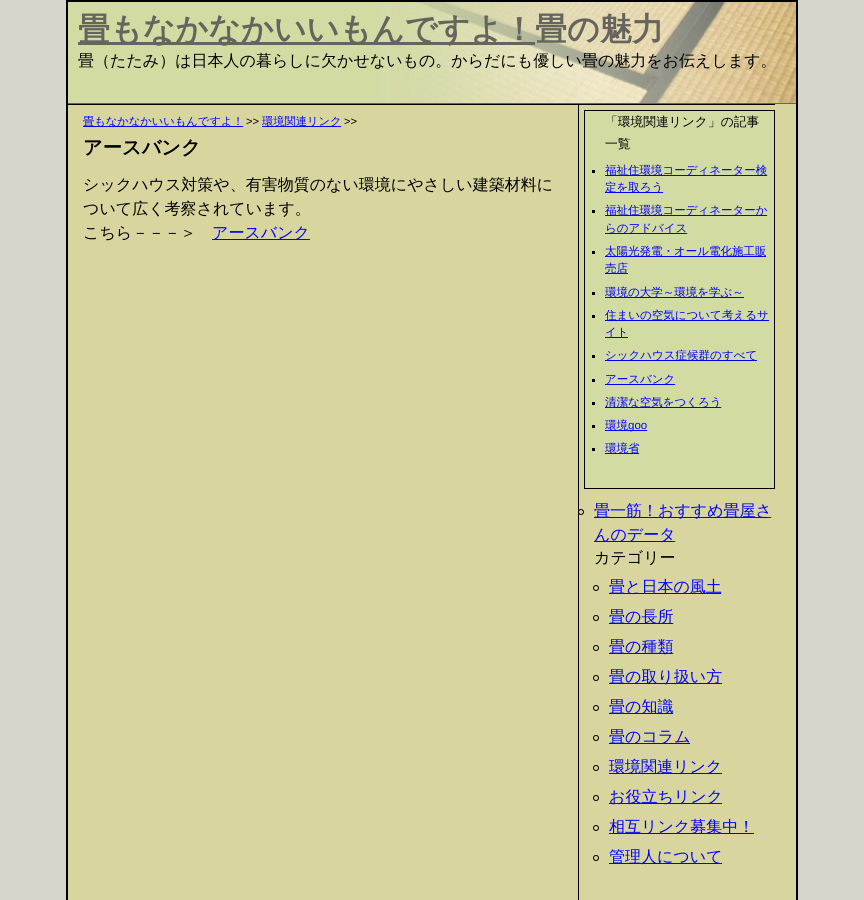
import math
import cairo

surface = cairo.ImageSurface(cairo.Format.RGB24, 864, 900)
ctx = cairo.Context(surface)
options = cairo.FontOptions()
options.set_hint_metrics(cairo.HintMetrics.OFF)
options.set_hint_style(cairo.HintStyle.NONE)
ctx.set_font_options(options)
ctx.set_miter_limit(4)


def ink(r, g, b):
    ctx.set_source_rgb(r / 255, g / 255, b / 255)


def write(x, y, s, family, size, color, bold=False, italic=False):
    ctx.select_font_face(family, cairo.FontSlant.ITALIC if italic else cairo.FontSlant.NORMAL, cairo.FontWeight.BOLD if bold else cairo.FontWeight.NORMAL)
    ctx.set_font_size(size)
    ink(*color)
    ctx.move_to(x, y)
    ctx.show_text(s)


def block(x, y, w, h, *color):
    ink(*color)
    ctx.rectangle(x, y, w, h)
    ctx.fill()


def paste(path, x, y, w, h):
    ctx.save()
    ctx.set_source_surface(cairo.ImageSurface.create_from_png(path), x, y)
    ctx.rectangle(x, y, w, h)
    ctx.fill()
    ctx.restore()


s1 = dict(family="WenQuanYi Zen Hei", size=32, color=(101, 101, 93), bold=True)
s2 = dict(family="WenQuanYi Zen Hei Medium", size=16, color=(0, 0, 0))
s3 = dict(family="WenQuanYi Zen Hei Medium", size=11.25, color=(0, 0, 255))
s4 = dict(family="Liberation Sans", size=11.25, color=(0, 0, 0))
s5 = dict(family="WenQuanYi Zen Hei", size=19.25, color=(0, 0, 0), bold=True)
s6 = dict(family="WenQuanYi Zen Hei Medium", size=16, color=(0, 0, 255))
s7 = dict(family="WenQuanYi Zen Hei Medium", size=12.75, color=(0, 0, 0))
s8 = dict(family="WenQuanYi Zen Hei Medium", size=11.5, color=(0, 0, 255))
s9 = dict(family="Liberation Sans", size=11.5, color=(0, 0, 255))

ink(214, 214, 204)
ctx.paint()
block(68, 104, 728, 796, 216, 214, 158)
ctx.rectangle(67, 1, 730, 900)
ink(0, 0, 0)
ctx.stroke()
paste("pic1.png", 68, 2, 728, 101)
block(68, 103, 728, 1, 101, 101, 93)
block(78, 42, 457, 3, 101, 101, 93)
write(78, 40, "畳もなかなかいいもんですよ！畳の魅力", **s1)
write(78, 66, "畳（たたみ）は日本人の暮らしに欠かせないもの。からだにも優しい畳の魅力をお伝えします。", **s2)
block(68, 104, 707, 1, 0, 0, 0)
block(83, 126, 160, 1, 0, 0, 255)
write(83, 125, "畳もなかなかいいもんですよ！", **s3)
write(246, 125, ">>", **s4)
block(262, 126, 79, 1, 0, 0, 255)
write(262, 125, "環境関連リンク", **s3)
write(344, 125, ">>", **s4)
write(83, 154, "アースバンク", **s5)
write(83, 190, "シックハウス対策や、有害物質のない環境にやさしい建築材料に", **s2)
write(83, 214, "ついて広く考察されています。", **s2)
write(83, 238, "こちら－－－＞", **s2)
block(212, 239, 98, 1, 0, 0, 255)
write(212, 238, "アースバンク", **s6)
block(578, 104, 1, 796, 0, 0, 0)
ink(210, 219, 162)
ctx.rectangle(584.5, 110.5, 190, 378)
ctx.fill_preserve()
ink(0, 0, 0)
ctx.set_line_width(1)
ctx.stroke()
write(605, 126, "「環境関連リンク」の記事", **s7)
write(605, 148, "一覧", **s7)
block(592, 170, 3, 3, 0, 0, 0)
block(605, 175, 162, 1, 0, 0, 255)
write(605, 174, "福祉住環境コーディネーター検", **s8)
block(605, 192, 58, 1, 0, 0, 255)
write(605, 191, "定を取ろう", **s8)
block(592, 210, 3, 3, 0, 0, 0)
block(605, 215, 162, 1, 0, 0, 255)
write(605, 214, "福祉住環境コーディネーターか", **s8)
block(605, 233, 82, 1, 0, 0, 255)
write(605, 232, "らのアドバイス", **s8)
block(592, 251, 3, 3, 0, 0, 0)
block(605, 256, 161, 1, 0, 0, 255)
write(605, 255, "太陽光発電・オール電化施工販", **s8)
block(605, 273, 23, 1, 0, 0, 255)
write(605, 272, "売店", **s8)
block(592, 292, 3, 3, 0, 0, 0)
block(605, 297, 139, 1, 0, 0, 255)
write(605, 296, "環境の大学～環境を学ぶ～", **s8)
block(592, 315, 3, 3, 0, 0, 0)
block(605, 320, 164, 1, 0, 0, 255)
write(605, 319, "住まいの空気について考えるサ", **s8)
block(605, 337, 23, 1, 0, 0, 255)
write(605, 336, "イト", **s8)
block(592, 355, 3, 3, 0, 0, 0)
block(605, 360, 152, 1, 0, 0, 255)
write(605, 359, "シックハウス症候群のすべて", **s8)
block(592, 379, 3, 3, 0, 0, 0)
block(605, 384, 70, 1, 0, 0, 255)
write(605, 383, "アースバンク", **s8)
block(592, 402, 3, 3, 0, 0, 0)
block(605, 407, 116, 1, 0, 0, 255)
write(605, 406, "清潔な空気をつくろう", **s8)
block(592, 425, 3, 3, 0, 0, 0)
block(605, 430, 42, 1, 0, 0, 255)
write(605, 429, "環境", **s8)
write(628, 429, "goo", **s9)
block(592, 448, 3, 3, 0, 0, 0)
block(605, 453, 34, 1, 0, 0, 255)
write(605, 452, "環境省", **s8)
ctx.save()
ctx.rectangle(579, 105, 196, 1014)
ctx.clip()
ctx.arc(581, 512, 2.5, 0, 2 * math.pi)
ink(0, 0, 0)
ctx.stroke()
ctx.restore()
block(594, 517, 177, 1, 0, 0, 255)
write(594, 516, "畳一筋！おすすめ畳屋さ", **s6)
block(594, 541, 81, 1, 0, 0, 255)
write(594, 540, "んのデータ", **s6)
write(594, 563, "カテゴリー", **s2)
ctx.new_path()
ctx.arc(596, 588, 2.5, 0, 2 * math.pi)
ctx.stroke()
block(609, 593, 112, 1, 0, 0, 255)
write(609, 592, "畳と日本の風土", **s6)
ctx.new_path()
ctx.arc(596, 618, 2.5, 0, 2 * math.pi)
ink(0, 0, 0)
ctx.stroke()
block(609, 623, 64, 1, 0, 0, 255)
write(609, 622, "畳の長所", **s6)
ctx.new_path()
ctx.arc(596, 648, 2.5, 0, 2 * math.pi)
ink(0, 0, 0)
ctx.stroke()
block(609, 653, 64, 1, 0, 0, 255)
write(609, 652, "畳の種類", **s6)
ctx.new_path()
ctx.arc(596, 678, 2.5, 0, 2 * math.pi)
ink(0, 0, 0)
ctx.stroke()
block(609, 683, 113, 1, 0, 0, 255)
write(609, 682, "畳の取り扱い方", **s6)
ctx.new_path()
ctx.arc(596, 708, 2.5, 0, 2 * math.pi)
ink(0, 0, 0)
ctx.stroke()
block(609, 713, 64, 1, 0, 0, 255)
write(609, 712, "畳の知識", **s6)
ctx.new_path()
ctx.arc(596, 738, 2.5, 0, 2 * math.pi)
ink(0, 0, 0)
ctx.stroke()
block(609, 743, 81, 1, 0, 0, 255)
write(609, 742, "畳のコラム", **s6)
ctx.new_path()
ctx.arc(596, 768, 2.5, 0, 2 * math.pi)
ink(0, 0, 0)
ctx.stroke()
block(609, 773, 113, 1, 0, 0, 255)
write(609, 772, "環境関連リンク", **s6)
ctx.new_path()
ctx.arc(596, 798, 2.5, 0, 2 * math.pi)
ink(0, 0, 0)
ctx.stroke()
block(609, 803, 113, 1, 0, 0, 255)
write(609, 802, "お役立ちリンク", **s6)
ctx.new_path()
ctx.arc(596, 828, 2.5, 0, 2 * math.pi)
ink(0, 0, 0)
ctx.stroke()
block(609, 833, 145, 1, 0, 0, 255)
write(609, 832, "相互リンク募集中！", **s6)
ctx.new_path()
ctx.arc(596, 858, 2.5, 0, 2 * math.pi)
ink(0, 0, 0)
ctx.stroke()
block(609, 863, 113, 1, 0, 0, 255)
write(609, 862, "管理人について", **s6)
surface.write_to_png("screenshot.png")
